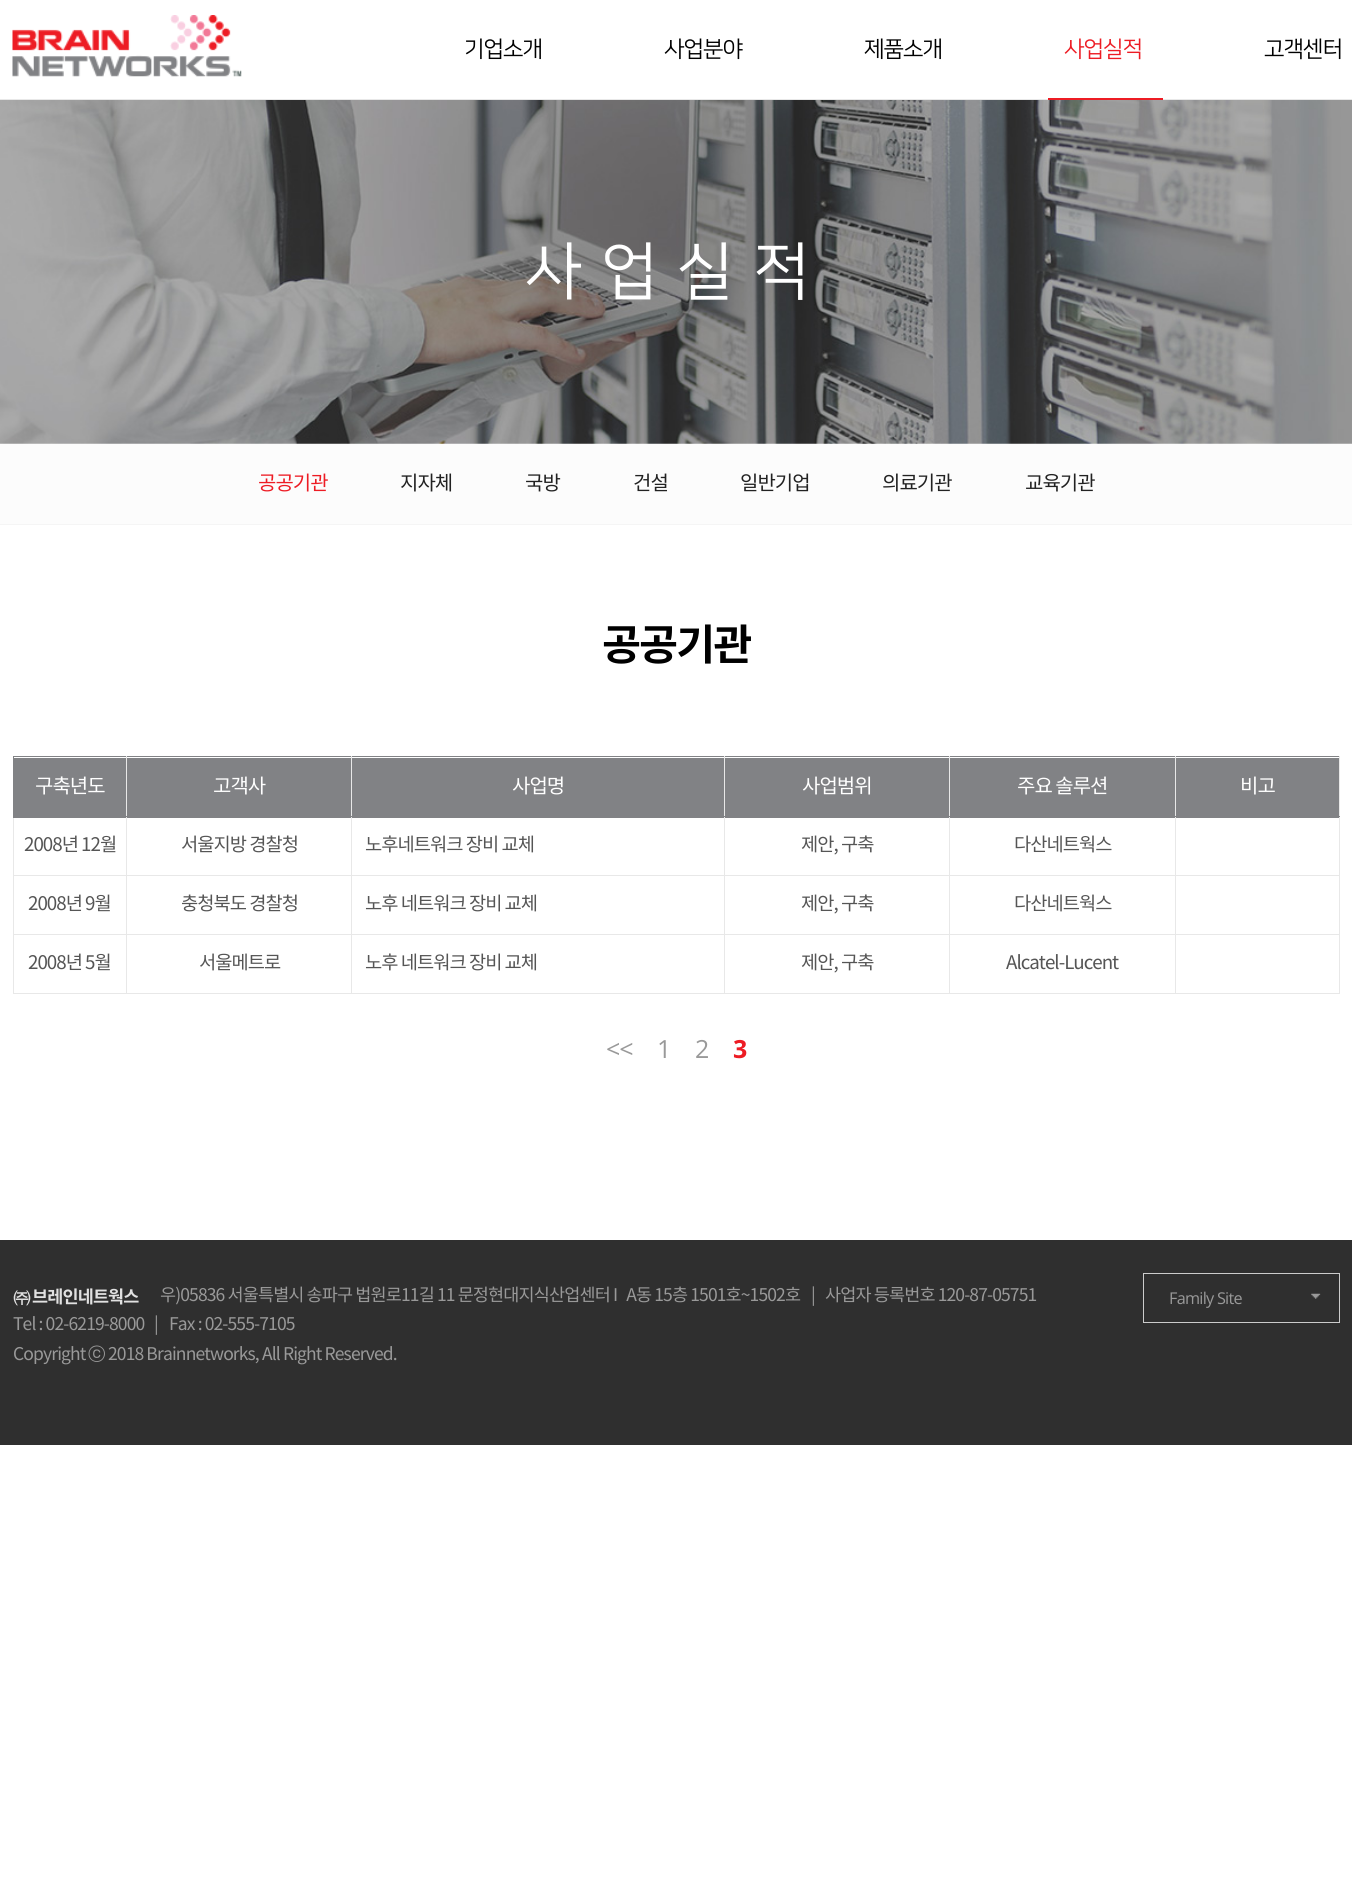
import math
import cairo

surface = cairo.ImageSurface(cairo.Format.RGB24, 1352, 1881)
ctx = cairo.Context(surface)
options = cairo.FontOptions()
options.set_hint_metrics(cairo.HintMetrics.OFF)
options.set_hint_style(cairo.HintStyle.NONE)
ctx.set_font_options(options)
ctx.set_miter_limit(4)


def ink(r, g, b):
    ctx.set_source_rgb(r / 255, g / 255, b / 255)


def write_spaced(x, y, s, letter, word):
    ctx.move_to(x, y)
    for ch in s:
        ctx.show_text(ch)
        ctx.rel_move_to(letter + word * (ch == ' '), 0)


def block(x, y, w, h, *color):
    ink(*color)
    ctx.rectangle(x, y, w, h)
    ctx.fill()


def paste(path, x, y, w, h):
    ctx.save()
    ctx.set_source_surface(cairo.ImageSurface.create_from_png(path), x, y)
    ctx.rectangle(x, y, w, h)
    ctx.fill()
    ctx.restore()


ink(255, 255, 255)
ctx.paint()
paste("pic1.png", 12, 15, 230, 62)
ctx.select_font_face("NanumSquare")
ctx.set_font_size(22.5)
ink(0, 0, 0)
write_spaced(464, 56, "기업소개", -1, 0)
write_spaced(664, 56, "사업분야", -1, 0)
write_spaced(864, 56, "제품소개", -1, 0)
ink(237, 28, 36)
write_spaced(1064, 56, "사업실적", -1, 0)
block(0, 99, 1352, 1, 232, 232, 232)
block(1048, 98, 115, 2, 237, 28, 36)
ink(0, 0, 0)
write_spaced(1264, 56, "고객센터", -1, 0)
paste("pic2.png", 0, 100, 1352, 344)
ctx.set_font_size(62.5)
ink(255, 255, 255)
write_spaced(525, 291, "사업실적", 19, 0)
block(0, 444, 1352, 80, 252, 252, 252)
block(0, 524, 1352, 1, 245, 245, 245)
ctx.select_font_face("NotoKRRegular")
ctx.set_font_size(20)
ink(237, 28, 36)
write_spaced(258, 490, "공공기관", -1, 0)
ink(34, 34, 34)
write_spaced(400, 490, "지자체", -1, 0)
write_spaced(525, 490, "국방", -1, 0)
write_spaced(633, 490, "건설", -1, 0)
write_spaced(740, 490, "일반기업", -1, 0)
write_spaced(882, 490, "의료기관", -1, 0)
write_spaced(1025, 490, "교육기관", -1, 0)
ctx.select_font_face("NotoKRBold", cairo.FontSlant.NORMAL, cairo.FontWeight.BOLD)
ctx.set_font_size(42.5)
ink(0, 0, 0)
write_spaced(602, 660, "공공기관", -2, 0)
block(14, 758, 112, 60, 129, 130, 133)
block(127, 758, 597, 60, 129, 130, 133)
block(725, 758, 224, 60, 129, 130, 133)
block(950, 758, 225, 60, 129, 130, 133)
block(13, 756, 1327, 1, 129, 130, 133)
block(1176, 758, 163, 60, 129, 130, 133)
block(1339, 816, 1, 178, 232, 232, 232)
block(1339, 756, 1, 62, 232, 232, 232)
block(1175, 993, 165, 1, 232, 232, 232)
block(1175, 934, 1, 60, 232, 232, 232)
block(1175, 934, 165, 1, 232, 232, 232)
block(1175, 875, 1, 60, 232, 232, 232)
block(1175, 875, 165, 1, 232, 232, 232)
block(1175, 816, 1, 60, 232, 232, 232)
block(1175, 816, 165, 1, 129, 130, 133)
block(1175, 756, 1, 62, 232, 232, 232)
block(949, 993, 227, 1, 232, 232, 232)
block(949, 934, 1, 60, 232, 232, 232)
block(949, 934, 227, 1, 232, 232, 232)
block(949, 875, 1, 60, 232, 232, 232)
block(949, 875, 227, 1, 232, 232, 232)
block(949, 816, 1, 60, 232, 232, 232)
block(949, 816, 227, 1, 129, 130, 133)
block(949, 756, 1, 62, 232, 232, 232)
block(724, 993, 226, 1, 232, 232, 232)
block(724, 934, 1, 60, 232, 232, 232)
block(724, 934, 226, 1, 232, 232, 232)
block(724, 875, 1, 60, 232, 232, 232)
block(724, 875, 226, 1, 232, 232, 232)
block(724, 816, 1, 60, 232, 232, 232)
block(724, 816, 226, 1, 129, 130, 133)
block(724, 756, 1, 62, 232, 232, 232)
block(351, 993, 374, 1, 232, 232, 232)
block(351, 934, 1, 60, 232, 232, 232)
block(351, 934, 374, 1, 232, 232, 232)
block(351, 875, 1, 60, 232, 232, 232)
block(351, 875, 374, 1, 232, 232, 232)
block(351, 816, 1, 60, 232, 232, 232)
block(351, 816, 374, 1, 129, 130, 133)
block(351, 756, 1, 62, 232, 232, 232)
block(126, 993, 227, 1, 232, 232, 232)
block(126, 934, 1, 60, 232, 232, 232)
block(126, 934, 227, 1, 232, 232, 232)
block(126, 875, 1, 60, 232, 232, 232)
block(126, 875, 227, 1, 232, 232, 232)
block(126, 816, 1, 60, 232, 232, 232)
block(126, 816, 227, 1, 129, 130, 133)
block(126, 756, 1, 62, 232, 232, 232)
block(13, 993, 115, 1, 232, 232, 232)
block(13, 934, 1, 60, 232, 232, 232)
block(13, 934, 115, 1, 232, 232, 232)
block(13, 875, 1, 60, 232, 232, 232)
block(13, 875, 115, 1, 232, 232, 232)
block(13, 816, 1, 60, 232, 232, 232)
block(13, 816, 115, 1, 129, 130, 133)
block(13, 756, 1, 62, 129, 130, 133)
ctx.select_font_face("NotoKRRegular")
ctx.set_font_size(20)
ink(255, 255, 255)
write_spaced(35, 793, "구축년도", -1, 0)
write_spaced(213, 793, "고객사", -1, 0)
write_spaced(512, 793, "사업명", -1, 0)
write_spaced(802, 793, "사업범위", -1, 0)
write_spaced(1017, 793, "주요 솔루션", -1, 0)
write_spaced(1240, 793, "비고", -1, 0)
ctx.set_font_size(18.75)
ink(85, 85, 85)
write_spaced(24, 851, "2008년 12월", -1, 0)
write_spaced(181, 851, "서울지방 경찰청", -1, 0)
write_spaced(365, 851, "노후네트워크 장비 교체", -1, 0)
write_spaced(801, 851, "제안, 구축", -1, 0)
write_spaced(1014, 851, "다산네트웍스", -1, 0)
write_spaced(28, 910, "2008년 9월", -1, 0)
write_spaced(181, 910, "충청북도 경찰청", -1, 0)
write_spaced(365, 910, "노후 네트워크 장비 교체", -1, 0)
write_spaced(801, 910, "제안, 구축", -1, 0)
write_spaced(1014, 910, "다산네트웍스", -1, 0)
write_spaced(28, 969, "2008년 5월", -1, 0)
write_spaced(199, 969, "서울메트로", -1, 0)
write_spaced(365, 969, "노후 네트워크 장비 교체", -1, 0)
write_spaced(801, 969, "제안, 구축", -1, 0)
write_spaced(1006, 969, "Alcatel-Lucent", -1, 0)
ctx.select_font_face("Open Sans")
ctx.set_font_size(25)
ink(153, 153, 153)
write_spaced(606, 1058, "<<", -1, 0)
write_spaced(657, 1058, "1", -1, 0)
write_spaced(695, 1058, "2", -1, 0)
ctx.select_font_face("Open Sans", cairo.FontSlant.NORMAL, cairo.FontWeight.BOLD)
ink(237, 28, 36)
write_spaced(733, 1058, "3", -1, 0)
block(0, 1240, 1352, 205, 47, 47, 47)
ctx.select_font_face("WenQuanYi Zen Hei", cairo.FontSlant.NORMAL, cairo.FontWeight.BOLD)
ctx.set_font_size(17.5)
ink(225, 225, 225)
write_spaced(13, 1303, "㈜", -0.88, 0)
ctx.select_font_face("NotoKRBold", cairo.FontSlant.NORMAL, cairo.FontWeight.BOLD)
write_spaced(32, 1303, "브레인네트웍스", -0.88, 0)
ctx.select_font_face("NotoKRRegular")
ink(153, 153, 153)
write_spaced(160, 1301, "우)05836 서울특별시 송파구 법원로11길 11 문정현대지식산업센터 I   A동 15층 1501호~1502호", -0.88, 0)
write_spaced(811, 1301, "|", -0.88, 0)
write_spaced(825, 1301, "사업자 등록번호 120-87-05751", -0.88, 0)
paste("pic3.png", 1311, 1293, 10, 6)
ctx.rectangle(1143.5, 1273.5, 196, 49)
ink(204, 204, 204)
ctx.set_line_width(1)
ctx.stroke()
ctx.select_font_face("Open Sans")
ctx.set_font_size(16.25)
ink(153, 153, 153)
write_spaced(1169, 1304, "Family Site", -0.75, 0)
ctx.select_font_face("NotoKRRegular")
ctx.set_font_size(17.5)
write_spaced(13, 1330, "Tel : 02-6219-8000", -0.88, 0)
write_spaced(154, 1330, "|", -0.88, 0)
write_spaced(169, 1330, "Fax : 02-555-7105", -0.88, 0)
write_spaced(13, 1360, "Copyright", -0.88, 0)
ctx.select_font_face("WenQuanYi Zen Hei Medium")
write_spaced(88, 1360, "ⓒ", -0.88, 0)
ctx.select_font_face("NotoKRRegular")
write_spaced(108, 1360, "2018 Brainnetworks, All Right Reserved.", -0.88, 0)
surface.write_to_png("screenshot.png")
